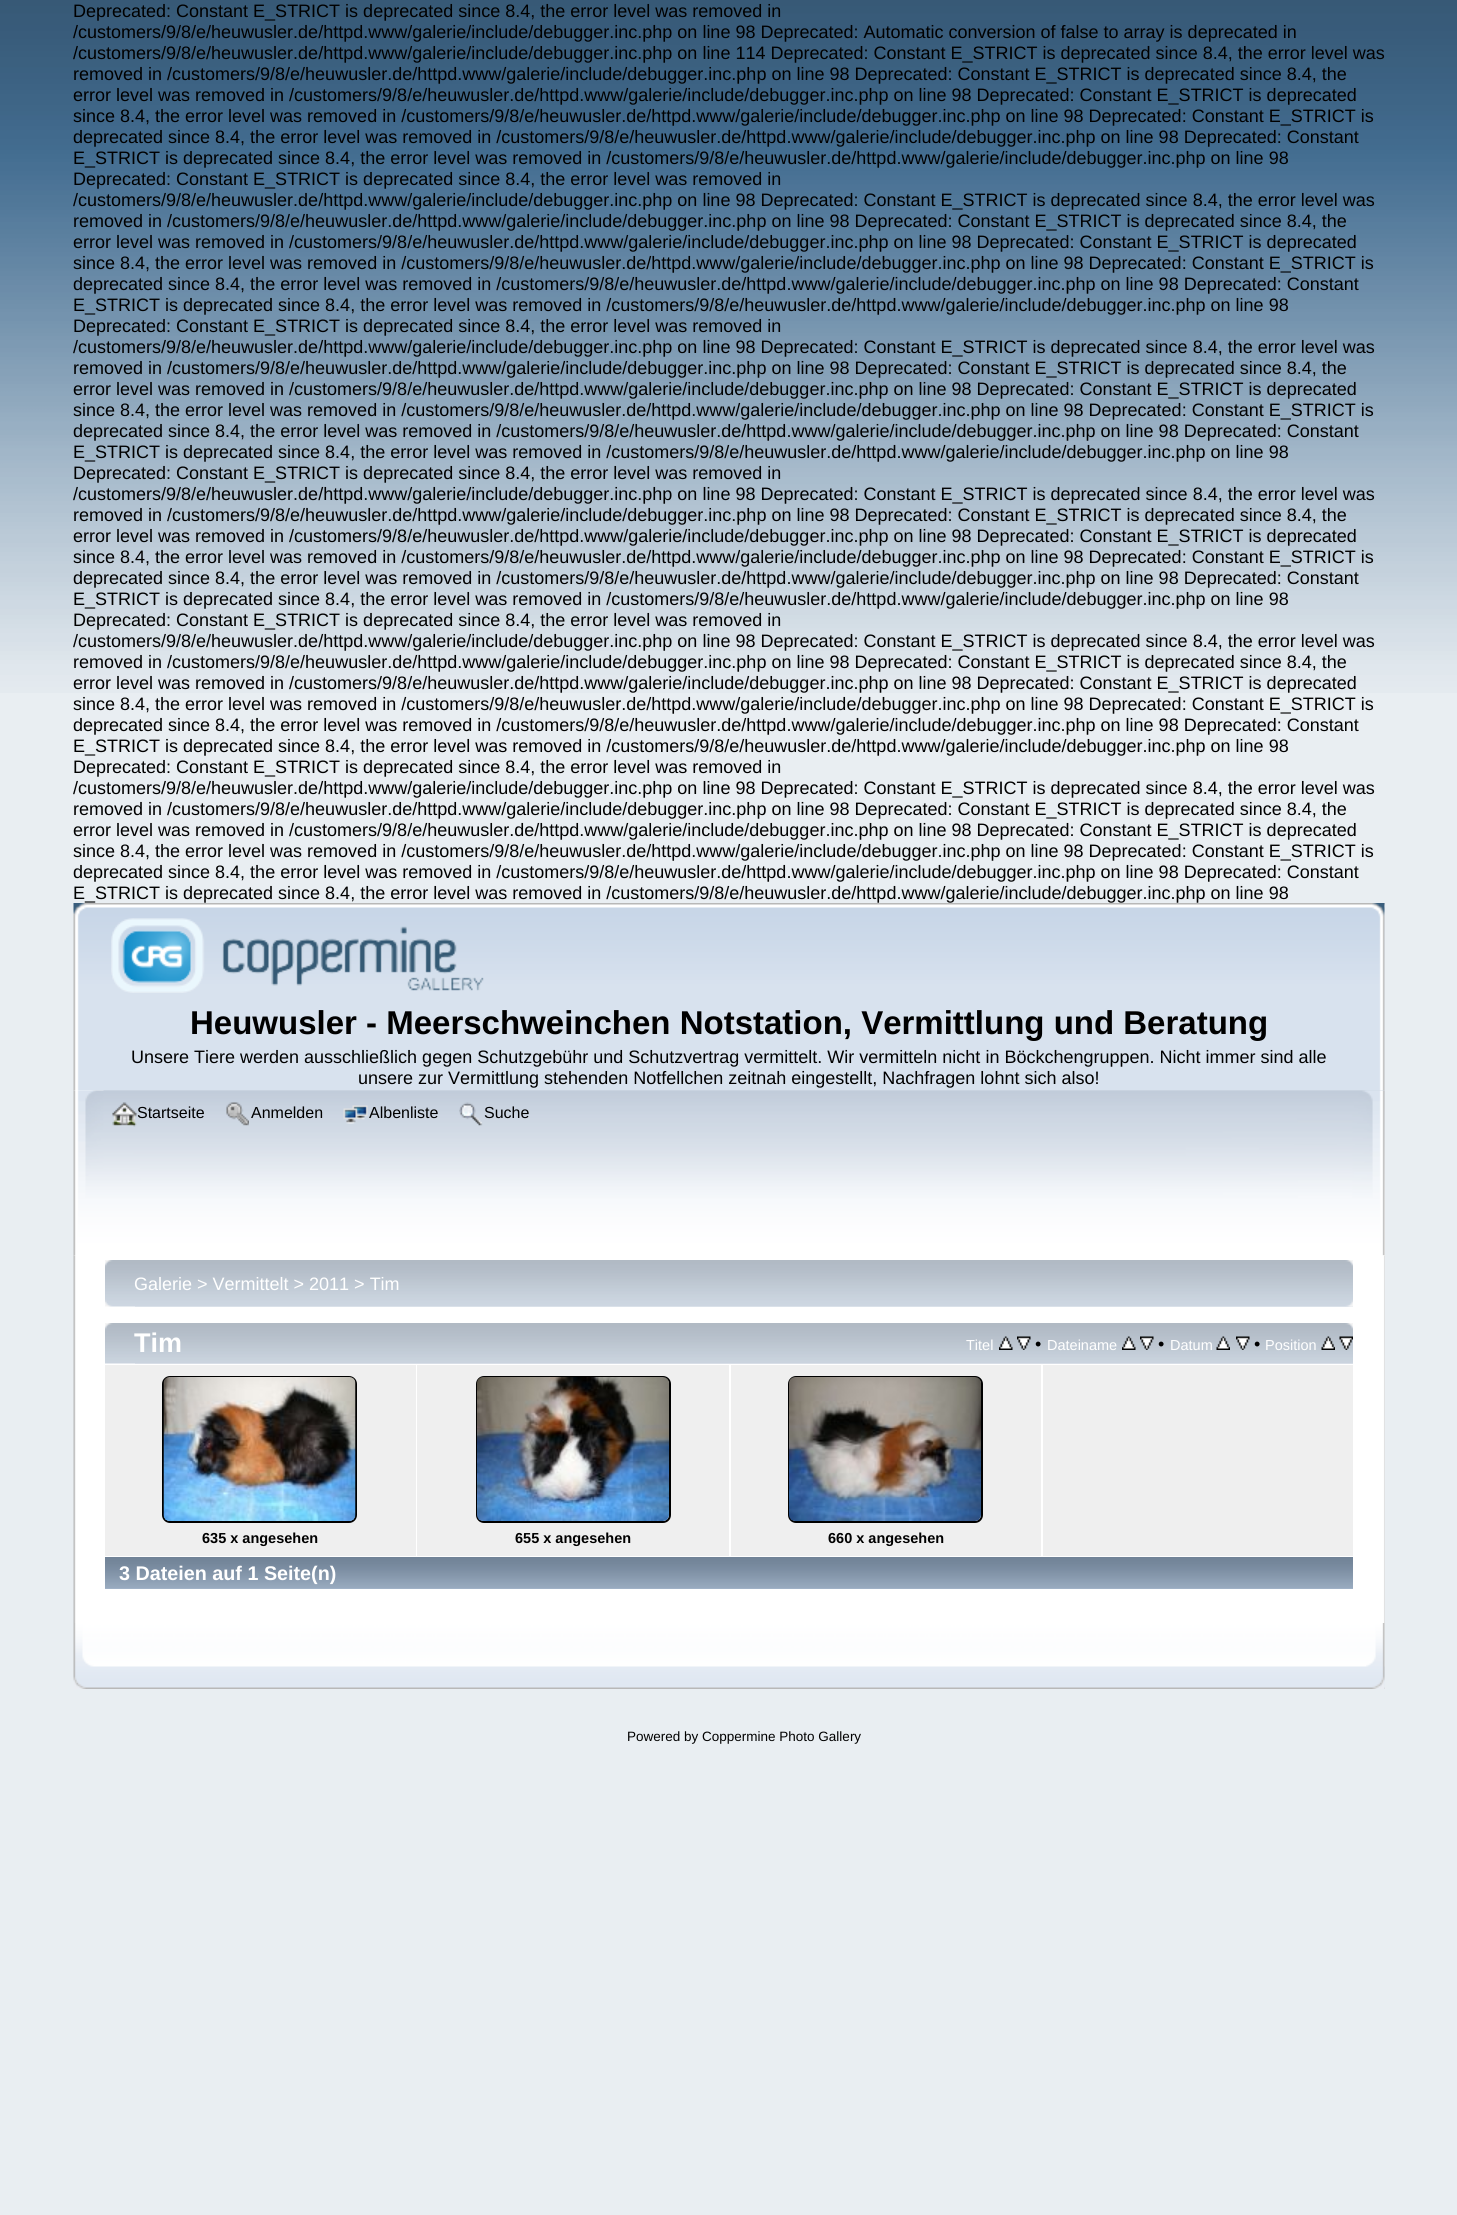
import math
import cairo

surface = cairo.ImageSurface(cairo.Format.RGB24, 1457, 2215)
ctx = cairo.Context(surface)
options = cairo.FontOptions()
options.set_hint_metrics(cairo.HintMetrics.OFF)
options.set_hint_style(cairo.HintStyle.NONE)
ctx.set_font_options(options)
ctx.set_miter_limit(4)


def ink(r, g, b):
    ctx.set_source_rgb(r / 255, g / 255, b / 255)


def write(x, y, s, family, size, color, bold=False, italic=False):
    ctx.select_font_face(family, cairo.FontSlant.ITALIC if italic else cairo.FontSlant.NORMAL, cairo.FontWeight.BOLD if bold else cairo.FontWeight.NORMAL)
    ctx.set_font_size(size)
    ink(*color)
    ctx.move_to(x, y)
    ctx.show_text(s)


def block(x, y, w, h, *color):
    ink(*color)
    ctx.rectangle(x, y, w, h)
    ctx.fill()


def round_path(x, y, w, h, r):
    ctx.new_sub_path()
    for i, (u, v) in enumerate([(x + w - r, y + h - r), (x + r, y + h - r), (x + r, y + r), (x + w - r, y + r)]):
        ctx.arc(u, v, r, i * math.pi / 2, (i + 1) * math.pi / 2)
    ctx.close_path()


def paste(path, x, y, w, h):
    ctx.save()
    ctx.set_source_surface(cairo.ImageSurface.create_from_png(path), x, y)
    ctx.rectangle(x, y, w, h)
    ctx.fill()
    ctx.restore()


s1 = dict(family="Liberation Sans", size=18, color=(0, 0, 0))
s2 = dict(family="Liberation Sans", size=33, color=(0, 0, 0), bold=True)
s3 = dict(family="Liberation Sans", size=16, color=(0, 0, 0))
s4 = dict(family="Liberation Sans", size=18, color=(255, 255, 255))
s5 = dict(family="Liberation Sans", size=27, color=(255, 255, 255), bold=True)
s6 = dict(family="Liberation Sans", size=14.5, color=(255, 255, 255))
s7 = dict(family="Liberation Sans", size=14.5, color=(0, 0, 0), bold=True)
s8 = dict(family="Liberation Sans", size=19.75, color=(255, 255, 255), bold=True)
s9 = dict(family="Liberation Sans", size=13.5, color=(0, 0, 0))

ink(233, 238, 242)
ctx.paint()
paste("pic1.png", 0, 0, 1457, 693)
write(73, 17, "Deprecated: Constant E_STRICT is deprecated since 8.4, the error level was removed in", **s1)
write(73, 38, "/customers/9/8/e/heuwusler.de/httpd.www/galerie/include/debugger.inc.php on line 98 Deprecated: Automatic conversion of false to array is deprecated in", **s1)
write(73, 59, "/customers/9/8/e/heuwusler.de/httpd.www/galerie/include/debugger.inc.php on line 114 Deprecated: Constant E_STRICT is deprecated since 8.4, the error level was", **s1)
write(73, 80, "removed in /customers/9/8/e/heuwusler.de/httpd.www/galerie/include/debugger.inc.php on line 98 Deprecated: Constant E_STRICT is deprecated since 8.4, the", **s1)
write(73, 101, "error level was removed in /customers/9/8/e/heuwusler.de/httpd.www/galerie/include/debugger.inc.php on line 98 Deprecated: Constant E_STRICT is deprecated", **s1)
write(73, 122, "since 8.4, the error level was removed in /customers/9/8/e/heuwusler.de/httpd.www/galerie/include/debugger.inc.php on line 98 Deprecated: Constant E_STRICT is", **s1)
write(73, 143, "deprecated since 8.4, the error level was removed in /customers/9/8/e/heuwusler.de/httpd.www/galerie/include/debugger.inc.php on line 98 Deprecated: Constant", **s1)
write(73, 164, "E_STRICT is deprecated since 8.4, the error level was removed in /customers/9/8/e/heuwusler.de/httpd.www/galerie/include/debugger.inc.php on line 98", **s1)
write(73, 185, "Deprecated: Constant E_STRICT is deprecated since 8.4, the error level was removed in", **s1)
write(73, 206, "/customers/9/8/e/heuwusler.de/httpd.www/galerie/include/debugger.inc.php on line 98 Deprecated: Constant E_STRICT is deprecated since 8.4, the error level was", **s1)
write(73, 227, "removed in /customers/9/8/e/heuwusler.de/httpd.www/galerie/include/debugger.inc.php on line 98 Deprecated: Constant E_STRICT is deprecated since 8.4, the", **s1)
write(73, 248, "error level was removed in /customers/9/8/e/heuwusler.de/httpd.www/galerie/include/debugger.inc.php on line 98 Deprecated: Constant E_STRICT is deprecated", **s1)
write(73, 269, "since 8.4, the error level was removed in /customers/9/8/e/heuwusler.de/httpd.www/galerie/include/debugger.inc.php on line 98 Deprecated: Constant E_STRICT is", **s1)
write(73, 290, "deprecated since 8.4, the error level was removed in /customers/9/8/e/heuwusler.de/httpd.www/galerie/include/debugger.inc.php on line 98 Deprecated: Constant", **s1)
write(73, 311, "E_STRICT is deprecated since 8.4, the error level was removed in /customers/9/8/e/heuwusler.de/httpd.www/galerie/include/debugger.inc.php on line 98", **s1)
write(73, 332, "Deprecated: Constant E_STRICT is deprecated since 8.4, the error level was removed in", **s1)
write(73, 353, "/customers/9/8/e/heuwusler.de/httpd.www/galerie/include/debugger.inc.php on line 98 Deprecated: Constant E_STRICT is deprecated since 8.4, the error level was", **s1)
write(73, 374, "removed in /customers/9/8/e/heuwusler.de/httpd.www/galerie/include/debugger.inc.php on line 98 Deprecated: Constant E_STRICT is deprecated since 8.4, the", **s1)
write(73, 395, "error level was removed in /customers/9/8/e/heuwusler.de/httpd.www/galerie/include/debugger.inc.php on line 98 Deprecated: Constant E_STRICT is deprecated", **s1)
write(73, 416, "since 8.4, the error level was removed in /customers/9/8/e/heuwusler.de/httpd.www/galerie/include/debugger.inc.php on line 98 Deprecated: Constant E_STRICT is", **s1)
write(73, 437, "deprecated since 8.4, the error level was removed in /customers/9/8/e/heuwusler.de/httpd.www/galerie/include/debugger.inc.php on line 98 Deprecated: Constant", **s1)
write(73, 458, "E_STRICT is deprecated since 8.4, the error level was removed in /customers/9/8/e/heuwusler.de/httpd.www/galerie/include/debugger.inc.php on line 98", **s1)
write(73, 479, "Deprecated: Constant E_STRICT is deprecated since 8.4, the error level was removed in", **s1)
write(73, 500, "/customers/9/8/e/heuwusler.de/httpd.www/galerie/include/debugger.inc.php on line 98 Deprecated: Constant E_STRICT is deprecated since 8.4, the error level was", **s1)
write(73, 521, "removed in /customers/9/8/e/heuwusler.de/httpd.www/galerie/include/debugger.inc.php on line 98 Deprecated: Constant E_STRICT is deprecated since 8.4, the", **s1)
write(73, 542, "error level was removed in /customers/9/8/e/heuwusler.de/httpd.www/galerie/include/debugger.inc.php on line 98 Deprecated: Constant E_STRICT is deprecated", **s1)
write(73, 563, "since 8.4, the error level was removed in /customers/9/8/e/heuwusler.de/httpd.www/galerie/include/debugger.inc.php on line 98 Deprecated: Constant E_STRICT is", **s1)
write(73, 584, "deprecated since 8.4, the error level was removed in /customers/9/8/e/heuwusler.de/httpd.www/galerie/include/debugger.inc.php on line 98 Deprecated: Constant", **s1)
write(73, 605, "E_STRICT is deprecated since 8.4, the error level was removed in /customers/9/8/e/heuwusler.de/httpd.www/galerie/include/debugger.inc.php on line 98", **s1)
write(73, 626, "Deprecated: Constant E_STRICT is deprecated since 8.4, the error level was removed in", **s1)
write(73, 647, "/customers/9/8/e/heuwusler.de/httpd.www/galerie/include/debugger.inc.php on line 98 Deprecated: Constant E_STRICT is deprecated since 8.4, the error level was", **s1)
write(73, 668, "removed in /customers/9/8/e/heuwusler.de/httpd.www/galerie/include/debugger.inc.php on line 98 Deprecated: Constant E_STRICT is deprecated since 8.4, the", **s1)
write(73, 689, "error level was removed in /customers/9/8/e/heuwusler.de/httpd.www/galerie/include/debugger.inc.php on line 98 Deprecated: Constant E_STRICT is deprecated", **s1)
write(73, 710, "since 8.4, the error level was removed in /customers/9/8/e/heuwusler.de/httpd.www/galerie/include/debugger.inc.php on line 98 Deprecated: Constant E_STRICT is", **s1)
write(73, 731, "deprecated since 8.4, the error level was removed in /customers/9/8/e/heuwusler.de/httpd.www/galerie/include/debugger.inc.php on line 98 Deprecated: Constant", **s1)
write(73, 752, "E_STRICT is deprecated since 8.4, the error level was removed in /customers/9/8/e/heuwusler.de/httpd.www/galerie/include/debugger.inc.php on line 98", **s1)
write(73, 773, "Deprecated: Constant E_STRICT is deprecated since 8.4, the error level was removed in", **s1)
write(73, 794, "/customers/9/8/e/heuwusler.de/httpd.www/galerie/include/debugger.inc.php on line 98 Deprecated: Constant E_STRICT is deprecated since 8.4, the error level was", **s1)
write(73, 815, "removed in /customers/9/8/e/heuwusler.de/httpd.www/galerie/include/debugger.inc.php on line 98 Deprecated: Constant E_STRICT is deprecated since 8.4, the", **s1)
write(73, 836, "error level was removed in /customers/9/8/e/heuwusler.de/httpd.www/galerie/include/debugger.inc.php on line 98 Deprecated: Constant E_STRICT is deprecated", **s1)
write(73, 857, "since 8.4, the error level was removed in /customers/9/8/e/heuwusler.de/httpd.www/galerie/include/debugger.inc.php on line 98 Deprecated: Constant E_STRICT is", **s1)
write(73, 878, "deprecated since 8.4, the error level was removed in /customers/9/8/e/heuwusler.de/httpd.www/galerie/include/debugger.inc.php on line 98 Deprecated: Constant", **s1)
write(73, 899, "E_STRICT is deprecated since 8.4, the error level was removed in /customers/9/8/e/heuwusler.de/httpd.www/galerie/include/debugger.inc.php on line 98", **s1)
block(74, 903, 1311, 353, 254, 254, 254)
paste("pic2.png", 73, 903, 1312, 188)
paste("pic3.png", 103, 903, 1282, 188)
paste("pic4.png", 111, 918, 373, 75)
write(190, 1034, "Heuwusler - Meerschweinchen Notstation, Vermittlung und Beratung", **s2)
write(131, 1063, "Unsere Tiere werden ausschließlich gegen Schutzgebühr und Schutzvertrag vermittelt. Wir vermitteln nicht in Böckchengruppen. Nicht immer sind alle", **s1)
write(358, 1084, "unsere zur Vermittlung stehenden Notfellchen zeitnah eingestellt, Nachfragen lohnt sich also!", **s1)
paste("pic5.png", 73, 1090, 1312, 166)
paste("pic6.png", 103, 1090, 1282, 166)
paste("pic7.png", 112, 1102, 25, 25)
write(137, 1118, "Startseite", **s3)
paste("pic8.png", 226, 1102, 23, 24)
write(251, 1118, "Anmelden", **s3)
paste("pic9.png", 343, 1105, 25, 19)
write(369, 1118, "Albenliste", **s3)
paste("pic10.png", 459, 1102, 24, 24)
write(484, 1118, "Suche", **s3)
paste("pic11.png", 73, 1255, 1312, 368)
paste("pic12.png", 1383, 1255, 2, 368)
paste("pic13.png", 105, 1260, 1248, 47)
paste("pic14.png", 135, 1260, 1218, 47)
write(134, 1290, "Galerie > Vermittelt > 2011 > Tim", **s4)
paste("pic15.png", 105, 1323, 1248, 41)
paste("pic16.png", 135, 1323, 1218, 41)
write(134, 1352, "Tim", **s5)
write(966, 1350, "Titel", **s6)
paste("pic17.png", 999, 1336, 14, 14)
paste("pic18.png", 1017, 1336, 14, 14)
write(1035, 1350, "•", **s1)
write(1047, 1350, "Dateiname", **s6)
paste("pic19.png", 1122, 1336, 14, 14)
paste("pic20.png", 1140, 1336, 14, 14)
write(1158, 1350, "•", **s1)
write(1170, 1350, "Datum", **s6)
paste("pic21.png", 1216, 1336, 14, 14)
paste("pic20.png", 1236, 1336, 14, 14)
write(1254, 1350, "•", **s1)
write(1265, 1350, "Position", **s6)
paste("pic22.png", 1321, 1336, 14, 14)
paste("pic23.png", 1339, 1336, 14, 14)
block(105, 1365, 311, 191, 239, 239, 239)
round_path(163, 1377, 193, 145, 7)
ink(0, 0, 0)
ctx.stroke()
paste("pic24.png", 163, 1377, 193, 144)
write(202, 1543, "635 x angesehen", **s7)
block(417, 1365, 312, 191, 239, 239, 239)
round_path(477, 1377, 193, 145, 7)
ink(0, 0, 0)
ctx.stroke()
paste("pic25.png", 477, 1377, 192, 144)
write(515, 1543, "655 x angesehen", **s7)
block(731, 1365, 310, 191, 239, 239, 239)
round_path(789, 1377, 193, 145, 7)
ink(0, 0, 0)
ctx.stroke()
paste("pic26.png", 789, 1377, 192, 144)
write(828, 1543, "660 x angesehen", **s7)
block(1043, 1365, 310, 191, 239, 239, 239)
block(105, 1588, 1248, 1, 168, 184, 204)
paste("pic27.png", 105, 1557, 1248, 32)
write(119, 1580, "3 Dateien auf 1 Seite(n)", **s8)
paste("pic28.png", 73, 1623, 1312, 66)
paste("pic29.png", 1366, 1623, 19, 66)
write(627, 1741, "Powered by Coppermine Photo Gallery", **s9)
surface.write_to_png("screenshot.png")
